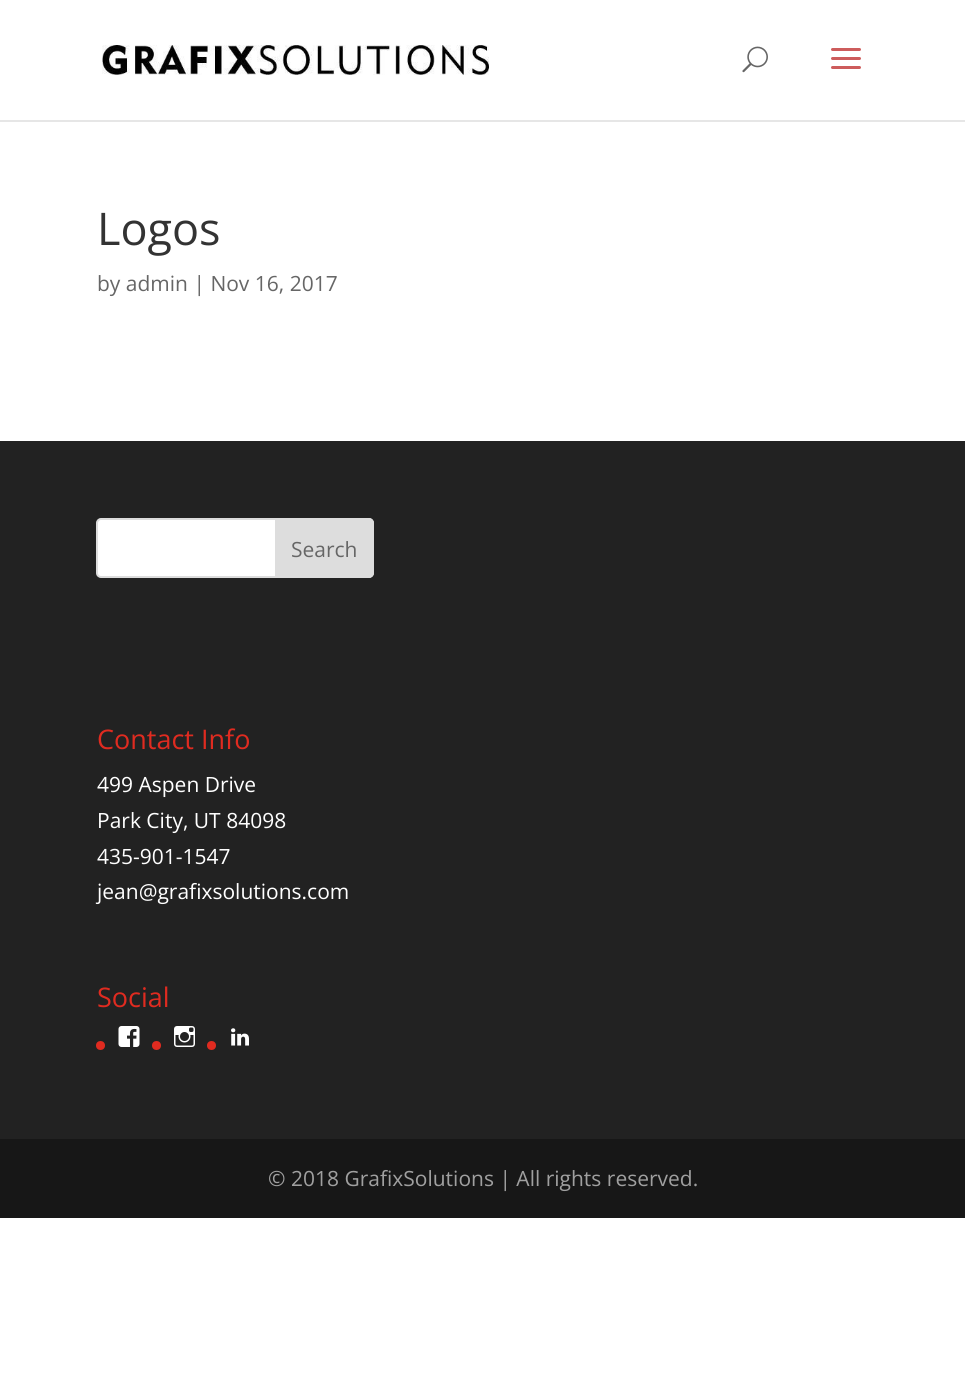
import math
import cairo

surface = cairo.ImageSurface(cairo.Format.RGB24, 965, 1385)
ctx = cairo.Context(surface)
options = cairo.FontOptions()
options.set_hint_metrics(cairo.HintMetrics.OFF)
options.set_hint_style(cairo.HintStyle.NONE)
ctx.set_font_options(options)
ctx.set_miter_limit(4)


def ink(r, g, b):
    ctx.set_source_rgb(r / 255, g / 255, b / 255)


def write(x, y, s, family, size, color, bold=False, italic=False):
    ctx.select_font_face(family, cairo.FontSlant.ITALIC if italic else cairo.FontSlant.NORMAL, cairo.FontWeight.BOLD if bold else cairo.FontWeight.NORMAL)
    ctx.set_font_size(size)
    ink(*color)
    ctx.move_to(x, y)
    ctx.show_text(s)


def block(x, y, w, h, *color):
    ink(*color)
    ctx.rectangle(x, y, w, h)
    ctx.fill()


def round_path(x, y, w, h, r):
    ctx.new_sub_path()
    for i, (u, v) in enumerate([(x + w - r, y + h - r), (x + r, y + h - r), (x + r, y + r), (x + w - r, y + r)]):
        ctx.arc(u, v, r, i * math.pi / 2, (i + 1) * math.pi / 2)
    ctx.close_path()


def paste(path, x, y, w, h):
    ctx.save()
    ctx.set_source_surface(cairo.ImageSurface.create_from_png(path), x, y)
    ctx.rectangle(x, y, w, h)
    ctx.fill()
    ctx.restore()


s1 = dict(family="Open Sans", size=45, color=(51, 51, 51))
s2 = dict(family="Open Sans", size=21, color=(102, 102, 102))
s3 = dict(family="Open Sans", size=27, color=(224, 43, 32))
s4 = dict(family="Open Sans", size=21, color=(255, 255, 255))
s5 = dict(family="Open Sans", size=21, color=(160, 160, 160))

ink(255, 255, 255)
ctx.paint()
block(0, 120, 965, 2, 230, 230, 230)
paste("pic1.png", 102, 45, 387, 30)
paste("pic2.png", 742, 46, 26, 27)
paste("pic3.png", 831, 48, 30, 21)
write(97, 245, "Logos", **s1)
write(97, 291, "by admin | Nov 16, 2017", **s2)
block(0, 441, 965, 698, 34, 34, 34)
ink(255, 255, 255)
round_path(97, 519, 276, 58, 4)
ctx.fill_preserve()
ink(221, 221, 221)
ctx.stroke()
ctx.new_path()
ctx.move_to(276, 519)
ctx.line_to(369, 519)
ctx.curve_to(371, 519, 373, 521, 373, 523)
ctx.line_to(373, 573)
ctx.curve_to(373, 575, 371, 577, 369, 577)
ctx.line_to(276, 577)
ctx.close_path()
ctx.fill_preserve()
ctx.stroke()
write(291, 557, "Search", **s2)
write(97, 749, "Contact Info", **s3)
write(97, 792, "499 Aspen Drive", **s4)
write(97, 828, "Park City, UT 84098", **s4)
write(97, 864, "435-901-1547", **s4)
write(97, 899, "jean@grafixsolutions.com", **s4)
write(97, 1007, "Social", **s3)
ctx.new_path()
ctx.arc(100.5, 1045.5, 4.5, 0, 2 * math.pi)
ctx.fill()
paste("pic4.png", 118, 1026, 22, 21)
ctx.arc(156.5, 1045.5, 4.5, 0, 2 * math.pi)
ctx.fill()
paste("pic5.png", 174, 1026, 21, 21)
ctx.arc(211.5, 1045.5, 4.5, 0, 2 * math.pi)
ctx.fill()
paste("pic6.png", 231, 1028, 18, 18)
block(0, 1139, 965, 79, 23, 23, 23)
write(268, 1186, "© 2018 GrafixSolutions | All rights reserved.", **s5)
surface.write_to_png("screenshot.png")
